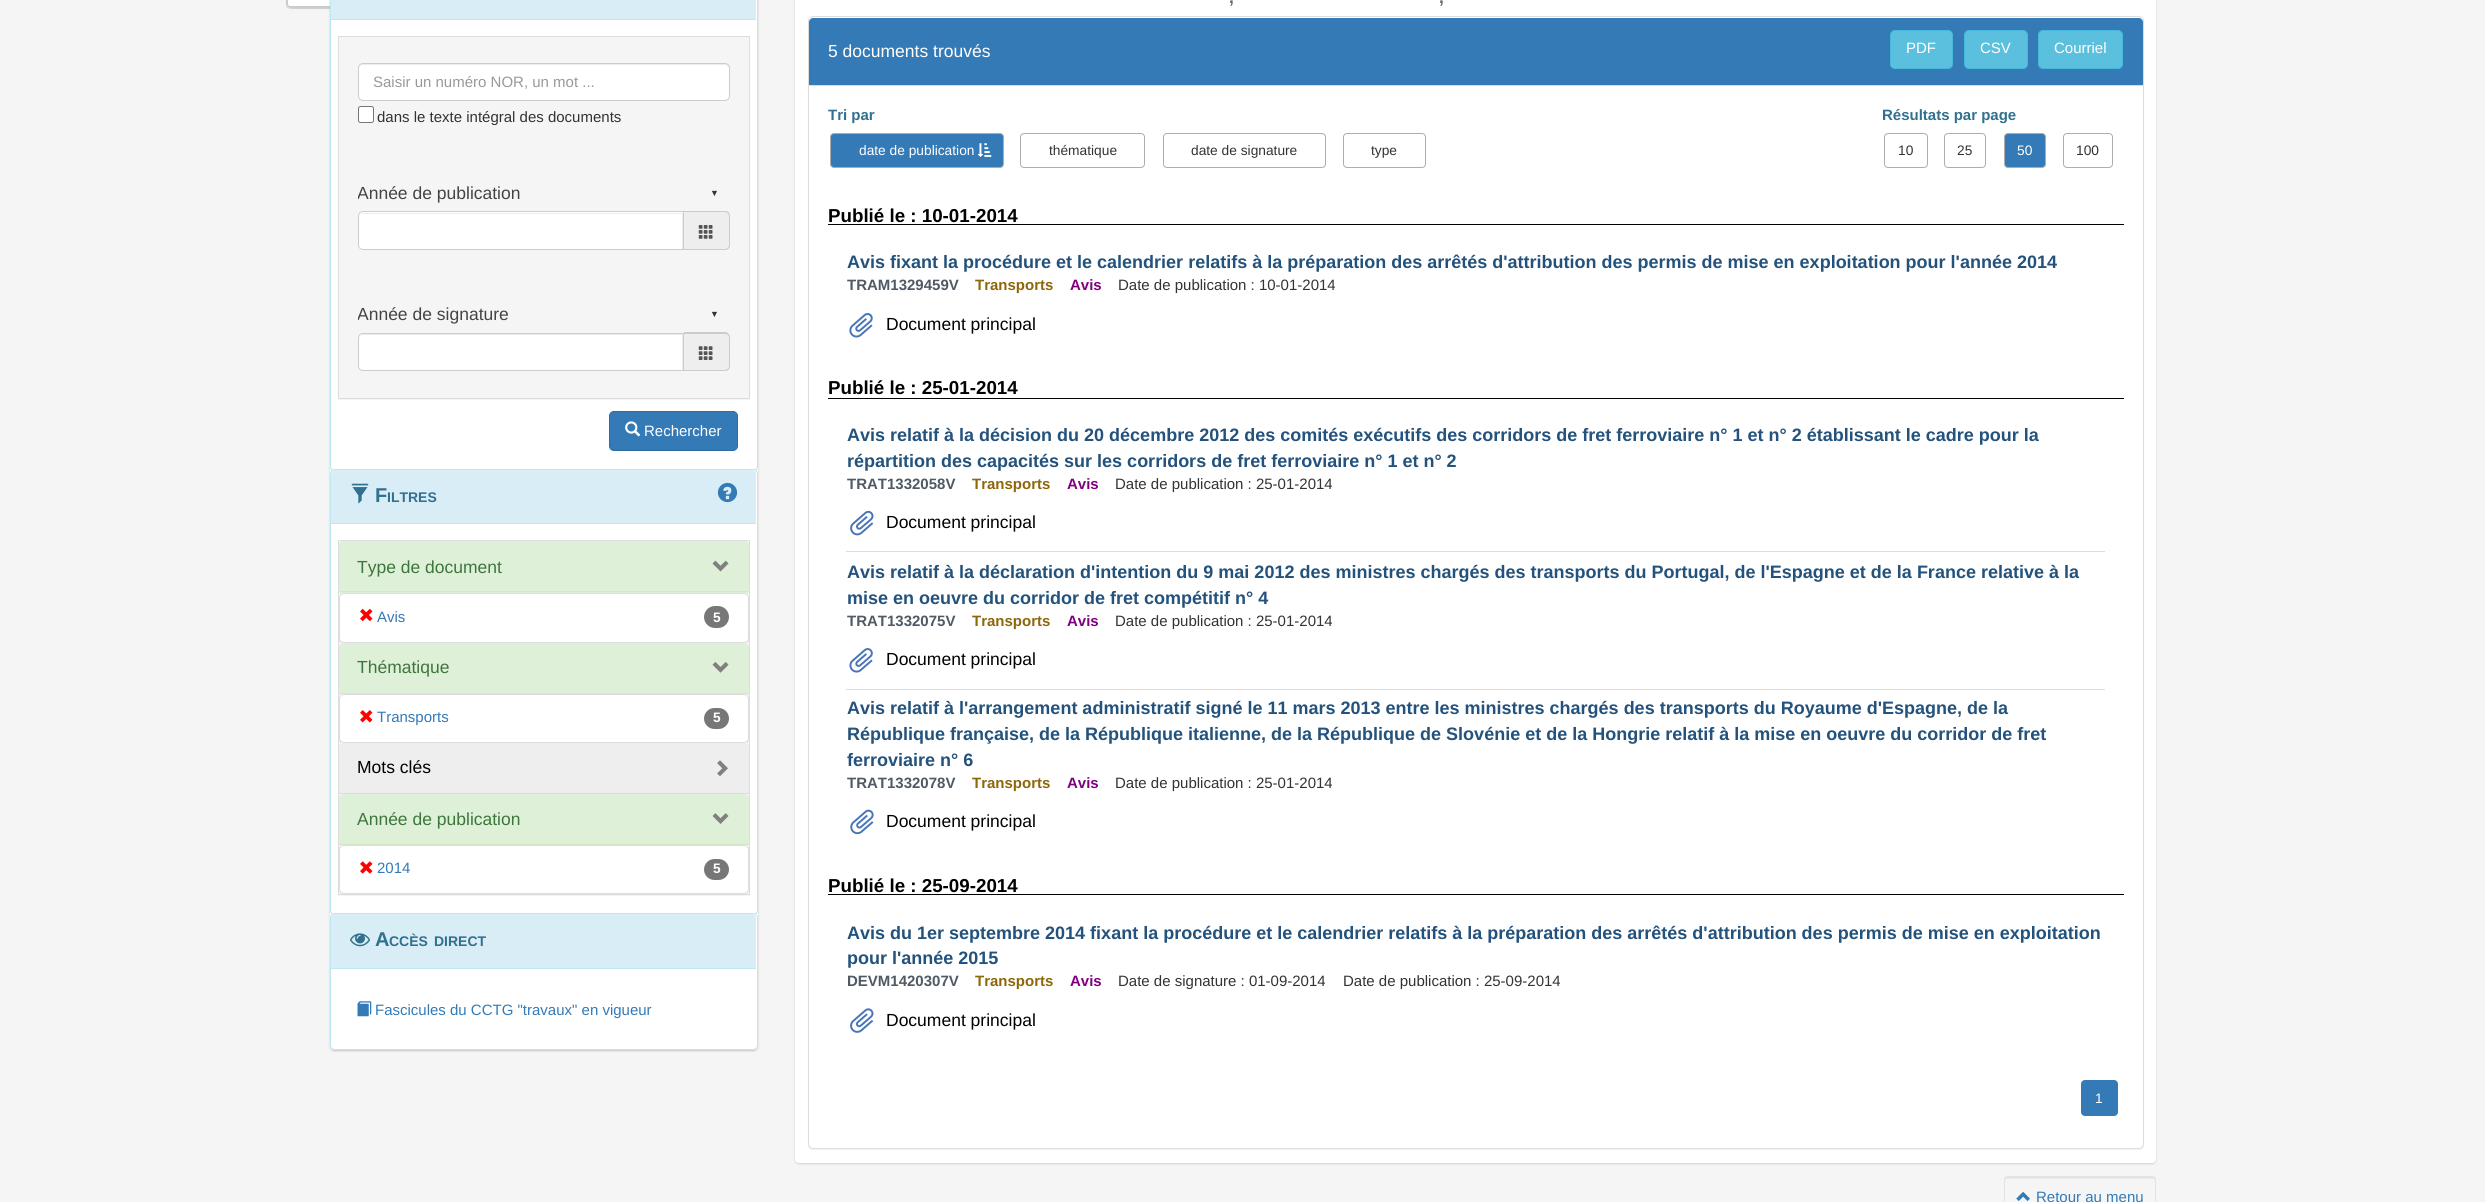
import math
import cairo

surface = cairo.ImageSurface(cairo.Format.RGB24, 2485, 1202)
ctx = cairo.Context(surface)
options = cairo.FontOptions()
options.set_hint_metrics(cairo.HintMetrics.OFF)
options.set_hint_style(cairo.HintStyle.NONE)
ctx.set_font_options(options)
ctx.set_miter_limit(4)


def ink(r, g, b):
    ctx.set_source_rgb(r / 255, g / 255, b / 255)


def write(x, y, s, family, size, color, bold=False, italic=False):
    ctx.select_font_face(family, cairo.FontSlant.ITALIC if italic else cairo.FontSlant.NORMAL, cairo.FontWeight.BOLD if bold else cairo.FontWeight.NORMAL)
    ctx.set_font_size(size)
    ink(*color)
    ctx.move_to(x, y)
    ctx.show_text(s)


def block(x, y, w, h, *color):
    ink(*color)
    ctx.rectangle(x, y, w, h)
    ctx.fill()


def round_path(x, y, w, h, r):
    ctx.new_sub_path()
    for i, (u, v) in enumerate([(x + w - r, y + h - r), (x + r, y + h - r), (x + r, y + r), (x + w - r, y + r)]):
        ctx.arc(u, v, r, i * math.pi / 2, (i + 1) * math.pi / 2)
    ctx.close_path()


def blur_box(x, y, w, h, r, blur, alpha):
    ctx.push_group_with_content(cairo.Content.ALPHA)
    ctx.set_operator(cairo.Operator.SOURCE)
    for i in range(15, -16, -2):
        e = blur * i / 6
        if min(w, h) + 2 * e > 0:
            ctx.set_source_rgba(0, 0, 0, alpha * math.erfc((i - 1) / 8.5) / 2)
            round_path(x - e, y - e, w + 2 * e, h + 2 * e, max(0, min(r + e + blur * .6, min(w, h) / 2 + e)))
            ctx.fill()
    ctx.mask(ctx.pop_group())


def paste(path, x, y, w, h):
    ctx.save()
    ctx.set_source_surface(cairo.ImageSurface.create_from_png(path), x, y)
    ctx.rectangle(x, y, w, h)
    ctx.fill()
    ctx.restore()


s1 = dict(family="Liberation Sans", size=15, color=(153, 153, 153))
s2 = dict(family="Liberation Sans", size=15, color=(51, 51, 51))
s3 = dict(family="Liberation Sans", size=17.5, color=(68, 68, 68))
s4 = dict(family="Liberation Sans", size=9, color=(51, 51, 51))
s5 = dict(family="Liberation Sans", size=15, color=(255, 255, 255))
s6 = dict(family="Liberation Sans", size=20, color=(49, 112, 143), bold=True)
s7 = dict(family="Liberation Sans", size=14, color=(49, 112, 143), bold=True)
s8 = dict(family="Liberation Sans", size=17.5, color=(60, 118, 61))
s9 = dict(family="Liberation Sans", size=15, color=(51, 122, 183))
s10 = dict(family="Liberation Sans", size=13.75, color=(255, 255, 255), bold=True)
s11 = dict(family="Liberation Sans", size=17.5, color=(0, 0, 0))
s12 = dict(family="Liberation Sans", size=17.5, color=(102, 102, 102), bold=True)
s13 = dict(family="Liberation Sans", size=17.5, color=(255, 255, 255))
s14 = dict(family="Liberation Sans", size=15, color=(49, 112, 143), bold=True)
s15 = dict(family="Liberation Sans", size=13.75, color=(255, 255, 255))
s16 = dict(family="Liberation Sans", size=13.75, color=(51, 51, 51))
s17 = dict(family="Liberation Sans", size=18.75, color=(0, 0, 0), bold=True)
s18 = dict(family="Liberation Sans", size=18, color=(35, 82, 124), bold=True)
s19 = dict(family="Liberation Sans", size=15, color=(79, 90, 101), bold=True)
s20 = dict(family="Liberation Sans", size=15, color=(141, 103, 8), bold=True)
s21 = dict(family="Liberation Sans", size=15, color=(128, 0, 128), bold=True)

ink(245, 245, 245)
ctx.paint()
ink(208, 208, 208)
ctx.new_path()
ctx.move_to(286, -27)
ctx.line_to(286, -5)
ctx.curve_to(286, 8, 284, 9, 297, 9)
ctx.line_to(333, 9)
ctx.line_to(333, -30)
ctx.line_to(332, -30)
ctx.line_to(332, 8)
ctx.line_to(290, 8)
ctx.curve_to(288, 8, 286, 6, 286, 4)
ctx.close_path()
ctx.fill()
ink(255, 255, 255)
ctx.new_path()
ctx.move_to(290, -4)
ctx.line_to(333, -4)
ctx.line_to(333, 8)
ctx.line_to(290, 8)
ctx.curve_to(288, 8, 286, 6, 286, 4)
ctx.line_to(286, 0)
ctx.curve_to(286, -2, 288, -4, 290, -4)
ctx.close_path()
ctx.fill()
ink(204, 204, 204)
ctx.set_fill_rule(cairo.FillRule.EVEN_ODD)
ctx.new_path()
ctx.move_to(290, -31)
ctx.line_to(332, -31)
ctx.line_to(332, 8)
ctx.line_to(290, 8)
ctx.curve_to(288, 8, 286, 6, 286, 4)
ctx.line_to(286, -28)
ctx.curve_to(286, -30, 288, -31, 290, -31)
ctx.close_path()
ctx.move_to(290, -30)
ctx.line_to(332, -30)
ctx.line_to(332, 6)
ctx.line_to(290, 6)
ctx.curve_to(289, 6, 288, 5, 288, 4)
ctx.line_to(288, -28)
ctx.curve_to(288, -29, 289, -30, 290, -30)
ctx.close_path()
ctx.fill()
ink(0, 0, 0)
blur_box(330, -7, 428, 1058, 4, 1, 0.15)
ink(255, 255, 255)
round_path(330, -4, 428, 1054, 4)
ctx.fill()
ink(0, 0, 0)
blur_box(330, -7, 428, 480, 5, 0.5, 0.05)
ink(255, 255, 255)
round_path(330.5, -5.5, 427, 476, 4.5)
ctx.fill_preserve()
ink(188, 232, 241)
ctx.set_line_width(1)
ctx.stroke()
block(331, 0, 425, 19, 217, 237, 247)
block(331, 19, 425, 1, 188, 232, 241)
ink(0, 0, 0)
blur_box(338, 38, 412, 362, 0, 0.5, 0.05)
ink(245, 245, 245)
ctx.rectangle(338.5, 36.5, 411, 362)
ctx.fill_preserve()
ink(221, 221, 221)
ctx.stroke()
ink(255, 255, 255)
round_path(358, 63, 372, 38, 5)
ctx.fill()
ink(236, 236, 236)
ctx.set_fill_rule(cairo.FillRule.WINDING)
ctx.new_path()
ctx.move_to(362, 65)
ctx.line_to(725, 65)
ctx.curve_to(727, 65, 729, 67, 729, 69)
ctx.curve_to(729, 66, 728, 64, 725, 64)
ctx.line_to(363, 64)
ctx.curve_to(360, 64, 359, 66, 359, 69)
ctx.curve_to(359, 67, 360, 65, 362, 65)
ctx.close_path()
ctx.fill()
round_path(358.5, 63.5, 371, 37, 4.5)
ink(204, 204, 204)
ctx.stroke()
write(373, 87, "Saisir un numéro NOR, un mot ...", **s1)
ink(255, 255, 255)
round_path(358.5, 106.5, 15, 16, 2)
ctx.fill_preserve()
ink(118, 118, 118)
ctx.stroke()
write(377, 122, "dans le texte intégral des documents", **s2)
ctx.save()
ctx.rectangle(358, 180, 328, 25)
ctx.clip()
write(357, 199, "Année de publication", **s3)
ctx.restore()
write(710, 196, "▼", **s4)
ink(255, 255, 255)
ctx.new_path()
ctx.move_to(363, 211)
ctx.line_to(684, 211)
ctx.line_to(684, 250)
ctx.line_to(363, 250)
ctx.curve_to(360, 250, 358, 248, 358, 245)
ctx.line_to(358, 216)
ctx.curve_to(358, 213, 360, 211, 363, 211)
ctx.close_path()
ctx.fill()
ink(236, 236, 236)
ctx.new_path()
ctx.move_to(362, 214)
ctx.line_to(682, 214)
ctx.line_to(682, 249)
ctx.line_to(683, 249)
ctx.line_to(683, 213)
ctx.line_to(363, 213)
ctx.curve_to(361, 213, 359, 215, 359, 217)
ctx.line_to(359, 218)
ctx.curve_to(359, 215, 360, 214, 362, 214)
ctx.close_path()
ctx.fill()
ctx.new_path()
ctx.move_to(363, 211.5)
ctx.line_to(683.5, 211.5)
ctx.line_to(683.5, 249.5)
ctx.line_to(363, 249.5)
ctx.curve_to(360.5, 249.5, 358.5, 247.5, 358.5, 245)
ctx.line_to(358.5, 216)
ctx.curve_to(358.5, 213.5, 360.5, 211.5, 363, 211.5)
ctx.close_path()
ink(204, 204, 204)
ctx.stroke()
ink(238, 238, 238)
ctx.new_path()
ctx.move_to(684, 211)
ctx.line_to(725, 211)
ctx.curve_to(728, 211, 730, 213, 730, 216)
ctx.line_to(730, 245)
ctx.curve_to(730, 248, 728, 250, 725, 250)
ctx.line_to(684, 250)
ctx.close_path()
ctx.fill()
ink(204, 204, 204)
ctx.set_fill_rule(cairo.FillRule.EVEN_ODD)
ctx.new_path()
ctx.move_to(684, 211)
ctx.line_to(725, 211)
ctx.curve_to(728, 211, 730, 213, 730, 216)
ctx.line_to(730, 245)
ctx.curve_to(730, 248, 728, 250, 725, 250)
ctx.line_to(684, 250)
ctx.close_path()
ctx.move_to(684, 212)
ctx.line_to(725, 212)
ctx.curve_to(727, 212, 729, 214, 729, 216)
ctx.line_to(729, 245)
ctx.curve_to(729, 247, 727, 249, 725, 249)
ctx.line_to(684, 249)
ctx.close_path()
ctx.fill()
paste("pic1.png", 698, 225, 15, 14)
ctx.save()
ctx.set_fill_rule(cairo.FillRule.WINDING)
ctx.rectangle(358, 301, 328, 25)
ctx.clip()
write(357, 320, "Année de signature", **s3)
ctx.restore()
write(710, 317, "▼", **s4)
ink(255, 255, 255)
ctx.new_path()
ctx.move_to(363, 333)
ctx.line_to(684, 333)
ctx.line_to(684, 371)
ctx.line_to(363, 371)
ctx.curve_to(360, 371, 358, 369, 358, 366)
ctx.line_to(358, 338)
ctx.curve_to(358, 335, 360, 333, 363, 333)
ctx.close_path()
ctx.fill()
ink(236, 236, 236)
ctx.set_fill_rule(cairo.FillRule.WINDING)
ctx.new_path()
ctx.move_to(362, 335)
ctx.line_to(682, 335)
ctx.line_to(682, 370)
ctx.line_to(683, 370)
ctx.line_to(683, 334)
ctx.line_to(363, 334)
ctx.curve_to(361, 334, 359, 336, 359, 338)
ctx.line_to(359, 339)
ctx.curve_to(359, 337, 360, 335, 362, 335)
ctx.close_path()
ctx.fill()
ctx.new_path()
ctx.move_to(363, 333.5)
ctx.line_to(683.5, 333.5)
ctx.line_to(683.5, 370.5)
ctx.line_to(363, 370.5)
ctx.curve_to(360.5, 370.5, 358.5, 368.5, 358.5, 366)
ctx.line_to(358.5, 338)
ctx.curve_to(358.5, 335.5, 360.5, 333.5, 363, 333.5)
ctx.close_path()
ink(204, 204, 204)
ctx.stroke()
ink(238, 238, 238)
ctx.new_path()
ctx.move_to(684, 333)
ctx.line_to(725, 333)
ctx.curve_to(728, 333, 730, 335, 730, 338)
ctx.line_to(730, 366)
ctx.curve_to(730, 369, 728, 371, 725, 371)
ctx.line_to(684, 371)
ctx.close_path()
ctx.fill()
ink(204, 204, 204)
ctx.set_fill_rule(cairo.FillRule.EVEN_ODD)
ctx.new_path()
ctx.move_to(684, 332)
ctx.line_to(725, 332)
ctx.curve_to(728, 332, 730, 335, 730, 338)
ctx.line_to(730, 366)
ctx.curve_to(730, 369, 728, 371, 725, 371)
ctx.line_to(684, 371)
ctx.close_path()
ctx.move_to(684, 334)
ctx.line_to(725, 334)
ctx.curve_to(727, 334, 729, 335, 729, 338)
ctx.line_to(729, 366)
ctx.curve_to(729, 368, 727, 370, 725, 370)
ctx.line_to(684, 370)
ctx.close_path()
ctx.fill()
paste("pic2.png", 698, 346, 15, 14)
ink(51, 122, 183)
round_path(609.5, 411.5, 128, 39, 4.5)
ctx.fill_preserve()
ink(46, 109, 164)
ctx.stroke()
paste("pic3.png", 625, 421, 16, 16)
write(644, 436, "Rechercher", **s5)
ink(0, 0, 0)
blur_box(330, 470, 428, 446, 5, 0.5, 0.05)
ink(255, 255, 255)
round_path(330.5, 469.5, 427, 445, 4.5)
ctx.fill_preserve()
ink(188, 232, 241)
ctx.stroke()
ink(217, 237, 247)
ctx.new_path()
ctx.move_to(335, 470)
ctx.line_to(752, 470)
ctx.curve_to(754, 470, 756, 472, 756, 474)
ctx.line_to(756, 524)
ctx.line_to(331, 524)
ctx.line_to(331, 474)
ctx.curve_to(331, 472, 333, 470, 335, 470)
ctx.close_path()
ctx.fill()
block(331, 523, 425, 1, 188, 232, 241)
paste("pic4.png", 351, 483, 18, 21)
write(375, 502, "F", **s6)
write(387, 502, "ILTRES", **s7)
paste("pic5.png", 717, 482, 21, 21)
block(339, 541, 410, 100, 245, 245, 245)
ctx.rectangle(338.5, 540.5, 411, 103)
ink(221, 221, 221)
ctx.stroke()
ink(223, 240, 216)
ctx.new_path()
ctx.move_to(343, 541)
ctx.line_to(745, 541)
ctx.curve_to(747, 541, 749, 543, 749, 545)
ctx.line_to(749, 593)
ctx.line_to(339, 593)
ctx.line_to(339, 545)
ctx.curve_to(339, 543, 341, 541, 343, 541)
ctx.close_path()
ctx.fill()
block(339, 591, 410, 1, 214, 233, 198)
write(357, 573, "Type de document", **s8)
paste("pic6.png", 712, 560, 17, 12)
block(339, 642, 410, 99, 245, 245, 245)
ctx.rectangle(338.5, 641.5, 411, 102)
ink(221, 221, 221)
ctx.stroke()
ink(255, 255, 255)
round_path(339.5, 593.5, 409, 49, 4.5)
ctx.fill_preserve()
ink(221, 221, 221)
ctx.stroke()
paste("pic7.png", 360, 608, 13, 14)
write(377, 622, "Avis", **s9)
ink(119, 119, 119)
round_path(704, 606, 25, 22, 11)
ctx.fill()
write(713, 622, "5", **s10)
ink(223, 240, 216)
ctx.new_path()
ctx.move_to(343, 643)
ctx.line_to(745, 643)
ctx.curve_to(747, 643, 749, 645, 749, 647)
ctx.line_to(749, 694)
ctx.line_to(339, 694)
ctx.line_to(339, 647)
ctx.curve_to(339, 645, 341, 643, 343, 643)
ctx.close_path()
ctx.fill()
block(339, 693, 410, 1, 214, 233, 198)
write(357, 673, "Thématique", **s8)
paste("pic8.png", 712, 662, 17, 11)
block(339, 742, 410, 5, 245, 245, 245)
ctx.rectangle(338.5, 741.5, 411, 53)
ink(221, 221, 221)
ctx.stroke()
ink(255, 255, 255)
round_path(339.5, 694.5, 409, 48, 4.5)
ctx.fill_preserve()
ink(221, 221, 221)
ctx.stroke()
paste("pic9.png", 360, 710, 13, 13)
write(377, 722, "Transports", **s9)
ink(119, 119, 119)
round_path(704, 708, 25, 21, 10.5)
ctx.fill()
write(713, 722, "5", **s10)
ink(238, 238, 238)
ctx.new_path()
ctx.move_to(343, 743)
ctx.line_to(745, 743)
ctx.curve_to(747, 743, 749, 745, 749, 747)
ctx.line_to(749, 794)
ctx.line_to(339, 794)
ctx.line_to(339, 747)
ctx.curve_to(339, 745, 341, 743, 343, 743)
ctx.close_path()
ctx.fill()
write(357, 773, "Mots clés", **s11)
paste("pic10.png", 717, 760, 11, 17)
ink(0, 0, 0)
blur_box(338, 794, 412, 102, 0, 0.5, 0.05)
ink(245, 245, 245)
ctx.rectangle(338.5, 793.5, 411, 101)
ctx.fill_preserve()
ink(221, 221, 221)
ctx.stroke()
ink(223, 240, 216)
ctx.new_path()
ctx.move_to(343, 794)
ctx.line_to(745, 794)
ctx.curve_to(747, 794, 749, 796, 749, 798)
ctx.line_to(749, 845)
ctx.line_to(339, 845)
ctx.line_to(339, 798)
ctx.curve_to(339, 796, 341, 794, 343, 794)
ctx.close_path()
ctx.fill()
block(339, 844, 410, 1, 214, 233, 198)
write(357, 825, "Année de publication", **s8)
paste("pic11.png", 712, 813, 17, 11)
ink(255, 255, 255)
round_path(339.5, 845.5, 409, 48, 4.5)
ctx.fill_preserve()
ink(221, 221, 221)
ctx.stroke()
paste("pic12.png", 360, 861, 13, 13)
write(377, 873, "2014", **s9)
ink(119, 119, 119)
round_path(704, 859, 25, 21, 10.5)
ctx.fill()
write(713, 873, "5", **s10)
ink(0, 0, 0)
blur_box(330, 914, 428, 137, 5, 0.5, 0.05)
ink(255, 255, 255)
round_path(330.5, 913.5, 427, 136, 4.5)
ctx.fill_preserve()
ink(188, 232, 241)
ctx.stroke()
ink(217, 237, 247)
ctx.new_path()
ctx.move_to(335, 914)
ctx.line_to(752, 914)
ctx.curve_to(754, 914, 756, 916, 756, 918)
ctx.line_to(756, 969)
ctx.line_to(331, 969)
ctx.line_to(331, 918)
ctx.curve_to(331, 916, 333, 914, 335, 914)
ctx.close_path()
ctx.fill()
block(331, 968, 425, 1, 188, 232, 241)
paste("pic13.png", 350, 933, 20, 14)
write(375, 946, "A", **s6)
write(389, 946, "CCÈS", **s7)
write(434, 946, "DIRECT", **s7)
paste("pic14.png", 357, 1001, 15, 16)
write(375, 1015, "Fascicules du CCTG \"travaux\" en vigueur", **s9)
ink(0, 0, 0)
blur_box(795, -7, 1361, 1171, 4, 1, 0.15)
ink(255, 255, 255)
round_path(795, -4, 1361, 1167, 4)
ctx.fill()
write(1229, 3, ",", **s12)
write(1439, 3, ",", **s12)
ink(0, 0, 0)
blur_box(808, 18, 1336, 1132, 5, 0.5, 0.05)
ink(255, 255, 255)
round_path(808.5, 16.5, 1335, 1132, 4.5)
ctx.fill_preserve()
ink(221, 221, 221)
ctx.stroke()
ink(51, 122, 183)
ctx.new_path()
ctx.move_to(813, 18)
ctx.line_to(2139, 18)
ctx.curve_to(2141, 18, 2143, 20, 2143, 22)
ctx.line_to(2143, 86)
ctx.line_to(809, 86)
ctx.line_to(809, 22)
ctx.curve_to(809, 20, 811, 18, 813, 18)
ctx.close_path()
ctx.fill()
block(809, 85, 1334, 1, 221, 221, 221)
write(828, 57, "5 documents trouvés", **s13)
ink(91, 192, 222)
round_path(1890.5, 30.5, 62, 38, 4.5)
ctx.fill_preserve()
ink(70, 184, 218)
ctx.stroke()
write(1906, 53, "PDF", **s5)
ink(91, 192, 222)
round_path(1964.5, 30.5, 63, 38, 4.5)
ctx.fill_preserve()
ink(70, 184, 218)
ctx.stroke()
write(1980, 53, "CSV", **s5)
ink(91, 192, 222)
round_path(2038.5, 30.5, 84, 38, 4.5)
ctx.fill_preserve()
ink(70, 184, 218)
ctx.stroke()
write(2054, 53, "Courriel", **s5)
write(828, 120, "Tri par", **s14)
ink(51, 122, 183)
round_path(830.5, 133.5, 173, 34, 3.5)
ctx.fill_preserve()
ink(173, 173, 173)
ctx.stroke()
write(859, 155, "date de publication", **s15)
paste("pic15.png", 977, 143, 15, 14)
round_path(1020.5, 133.5, 124, 34, 3.5)
ink(173, 173, 173)
ctx.stroke()
write(1049, 155, "thématique", **s16)
round_path(1163.5, 133.5, 162, 34, 3.5)
ink(173, 173, 173)
ctx.stroke()
write(1191, 155, "date de signature", **s16)
round_path(1343.5, 133.5, 82, 34, 3.5)
ink(173, 173, 173)
ctx.stroke()
write(1371, 155, "type", **s16)
write(1882, 120, "Résultats par page", **s14)
round_path(1884.5, 133.5, 43, 34, 3.5)
ink(173, 173, 173)
ctx.stroke()
write(1898, 155, "10", **s16)
round_path(1944.5, 133.5, 41, 34, 3.5)
ink(173, 173, 173)
ctx.stroke()
write(1957, 155, "25", **s16)
ink(51, 122, 183)
round_path(2004.5, 133.5, 41, 34, 3.5)
ctx.fill_preserve()
ink(173, 173, 173)
ctx.stroke()
write(2017, 155, "50", **s15)
round_path(2063.5, 133.5, 49, 34, 3.5)
ink(173, 173, 173)
ctx.stroke()
write(2076, 155, "100", **s16)
block(828, 224, 1296, 1, 0, 0, 0)
write(828, 222, "Publié le : 10-01-2014", **s17)
write(847, 268, "Avis fixant la procédure et le calendrier relatifs à la préparation des arrêtés d'attribution des permis de mise en exploitation pour l'année 2014", **s18)
write(847, 290, "TRAM1329459V", **s19)
write(975, 290, "Transports", **s20)
write(1070, 290, "Avis", **s21)
write(1118, 290, "Date de publication : 10-01-2014", **s2)
paste("pic16.png", 849, 313, 24, 25)
write(886, 330, "Document principal", **s11)
block(828, 398, 1296, 1, 0, 0, 0)
write(828, 394, "Publié le : 25-01-2014", **s17)
write(847, 441, "Avis relatif à la décision du 20 décembre 2012 des comités exécutifs des corridors de fret ferroviaire n° 1 et n° 2 établissant le cadre pour la", **s18)
write(847, 467, "répartition des capacités sur les corridors de fret ferroviaire n° 1 et n° 2", **s18)
write(847, 489, "TRAT1332058V", **s19)
write(972, 489, "Transports", **s20)
write(1067, 489, "Avis", **s21)
write(1115, 489, "Date de publication : 25-01-2014", **s2)
paste("pic17.png", 850, 510, 24, 26)
write(886, 528, "Document principal", **s11)
block(846, 551, 1259, 1, 221, 221, 221)
write(847, 578, "Avis relatif à la déclaration d'intention du 9 mai 2012 des ministres chargés des transports du Portugal, de l'Espagne et de la France relative à la", **s18)
write(847, 604, "mise en oeuvre du corridor de fret compétitif n° 4", **s18)
write(847, 626, "TRAT1332075V", **s19)
write(972, 626, "Transports", **s20)
write(1067, 626, "Avis", **s21)
write(1115, 626, "Date de publication : 25-01-2014", **s2)
paste("pic18.png", 849, 648, 24, 25)
write(886, 665, "Document principal", **s11)
block(846, 689, 1259, 1, 221, 221, 221)
write(847, 714, "Avis relatif à l'arrangement administratif signé le 11 mars 2013 entre les ministres chargés des transports du Royaume d'Espagne, de la", **s18)
write(847, 740, "République française, de la République italienne, de la République de Slovénie et de la Hongrie relatif à la mise en oeuvre du corridor de fret", **s18)
write(847, 766, "ferroviaire n° 6", **s18)
write(847, 788, "TRAT1332078V", **s19)
write(972, 788, "Transports", **s20)
write(1067, 788, "Avis", **s21)
write(1115, 788, "Date de publication : 25-01-2014", **s2)
paste("pic19.png", 850, 809, 24, 26)
write(886, 827, "Document principal", **s11)
block(828, 894, 1296, 1, 0, 0, 0)
write(828, 892, "Publié le : 25-09-2014", **s17)
write(847, 939, "Avis du 1er septembre 2014 fixant la procédure et le calendrier relatifs à la préparation des arrêtés d'attribution des permis de mise en exploitation", **s18)
write(847, 964, "pour l'année 2015", **s18)
write(847, 986, "DEVM1420307V", **s19)
write(975, 986, "Transports", **s20)
write(1070, 986, "Avis", **s21)
write(1118, 986, "Date de signature : 01-09-2014", **s2)
write(1343, 986, "Date de publication : 25-09-2014", **s2)
paste("pic20.png", 850, 1008, 24, 25)
write(886, 1026, "Document principal", **s11)
ink(51, 122, 183)
round_path(2081.5, 1080.5, 36, 35, 3.5)
ctx.fill_preserve()
ctx.stroke()
write(2095, 1103, "1", **s15)
ink(233, 233, 233)
ctx.set_fill_rule(cairo.FillRule.WINDING)
ctx.new_path()
ctx.move_to(2008, 1179)
ctx.line_to(2031, 1179)
ctx.line_to(2031, 1178)
ctx.line_to(2007.5, 1178)
ctx.curve_to(2006, 1178, 2005, 1179, 2005, 1180.5)
ctx.line_to(2005, 1181)
ctx.curve_to(2005, 1180, 2006, 1179, 2008, 1179)
ctx.close_path()
ctx.fill()
ink(227, 227, 227)
ctx.set_fill_rule(cairo.FillRule.EVEN_ODD)
ctx.new_path()
ctx.move_to(2008, 1176)
ctx.line_to(2031, 1176)
ctx.line_to(2031, 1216)
ctx.line_to(2008, 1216)
ctx.curve_to(2005, 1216, 2004, 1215, 2004, 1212)
ctx.line_to(2004, 1180)
ctx.curve_to(2004, 1178, 2005, 1176, 2008, 1176)
ctx.close_path()
ctx.move_to(2008, 1178)
ctx.line_to(2031, 1178)
ctx.line_to(2031, 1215)
ctx.line_to(2008, 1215)
ctx.curve_to(2006, 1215, 2005, 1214, 2005, 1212)
ctx.line_to(2005, 1180)
ctx.curve_to(2005, 1179, 2006, 1178, 2008, 1178)
ctx.close_path()
ctx.fill()
ink(233, 233, 233)
ctx.set_fill_rule(cairo.FillRule.WINDING)
ctx.new_path()
ctx.move_to(2031, 1179)
ctx.line_to(2152, 1179)
ctx.curve_to(2154, 1179, 2155, 1180, 2155, 1181)
ctx.curve_to(2155, 1180, 2155, 1179, 2153, 1178)
ctx.line_to(2031, 1178)
ctx.close_path()
ctx.fill()
ink(227, 227, 227)
ctx.set_fill_rule(cairo.FillRule.EVEN_ODD)
ctx.new_path()
ctx.move_to(2031, 1176)
ctx.line_to(2152, 1176)
ctx.curve_to(2155, 1176, 2156, 1178, 2156, 1180)
ctx.line_to(2156, 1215)
ctx.curve_to(2156, 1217, 2155, 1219, 2152, 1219)
ctx.line_to(2031, 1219)
ctx.close_path()
ctx.move_to(2031, 1178)
ctx.line_to(2152, 1178)
ctx.curve_to(2154, 1178, 2155, 1179, 2155, 1180)
ctx.line_to(2155, 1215)
ctx.curve_to(2155, 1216, 2154, 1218, 2152, 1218)
ctx.line_to(2031, 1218)
ctx.close_path()
ctx.fill()
paste("pic21.png", 2016, 1191, 14, 10)
write(2036, 1202, "Retour au menu", **s9)
surface.write_to_png("screenshot.png")
